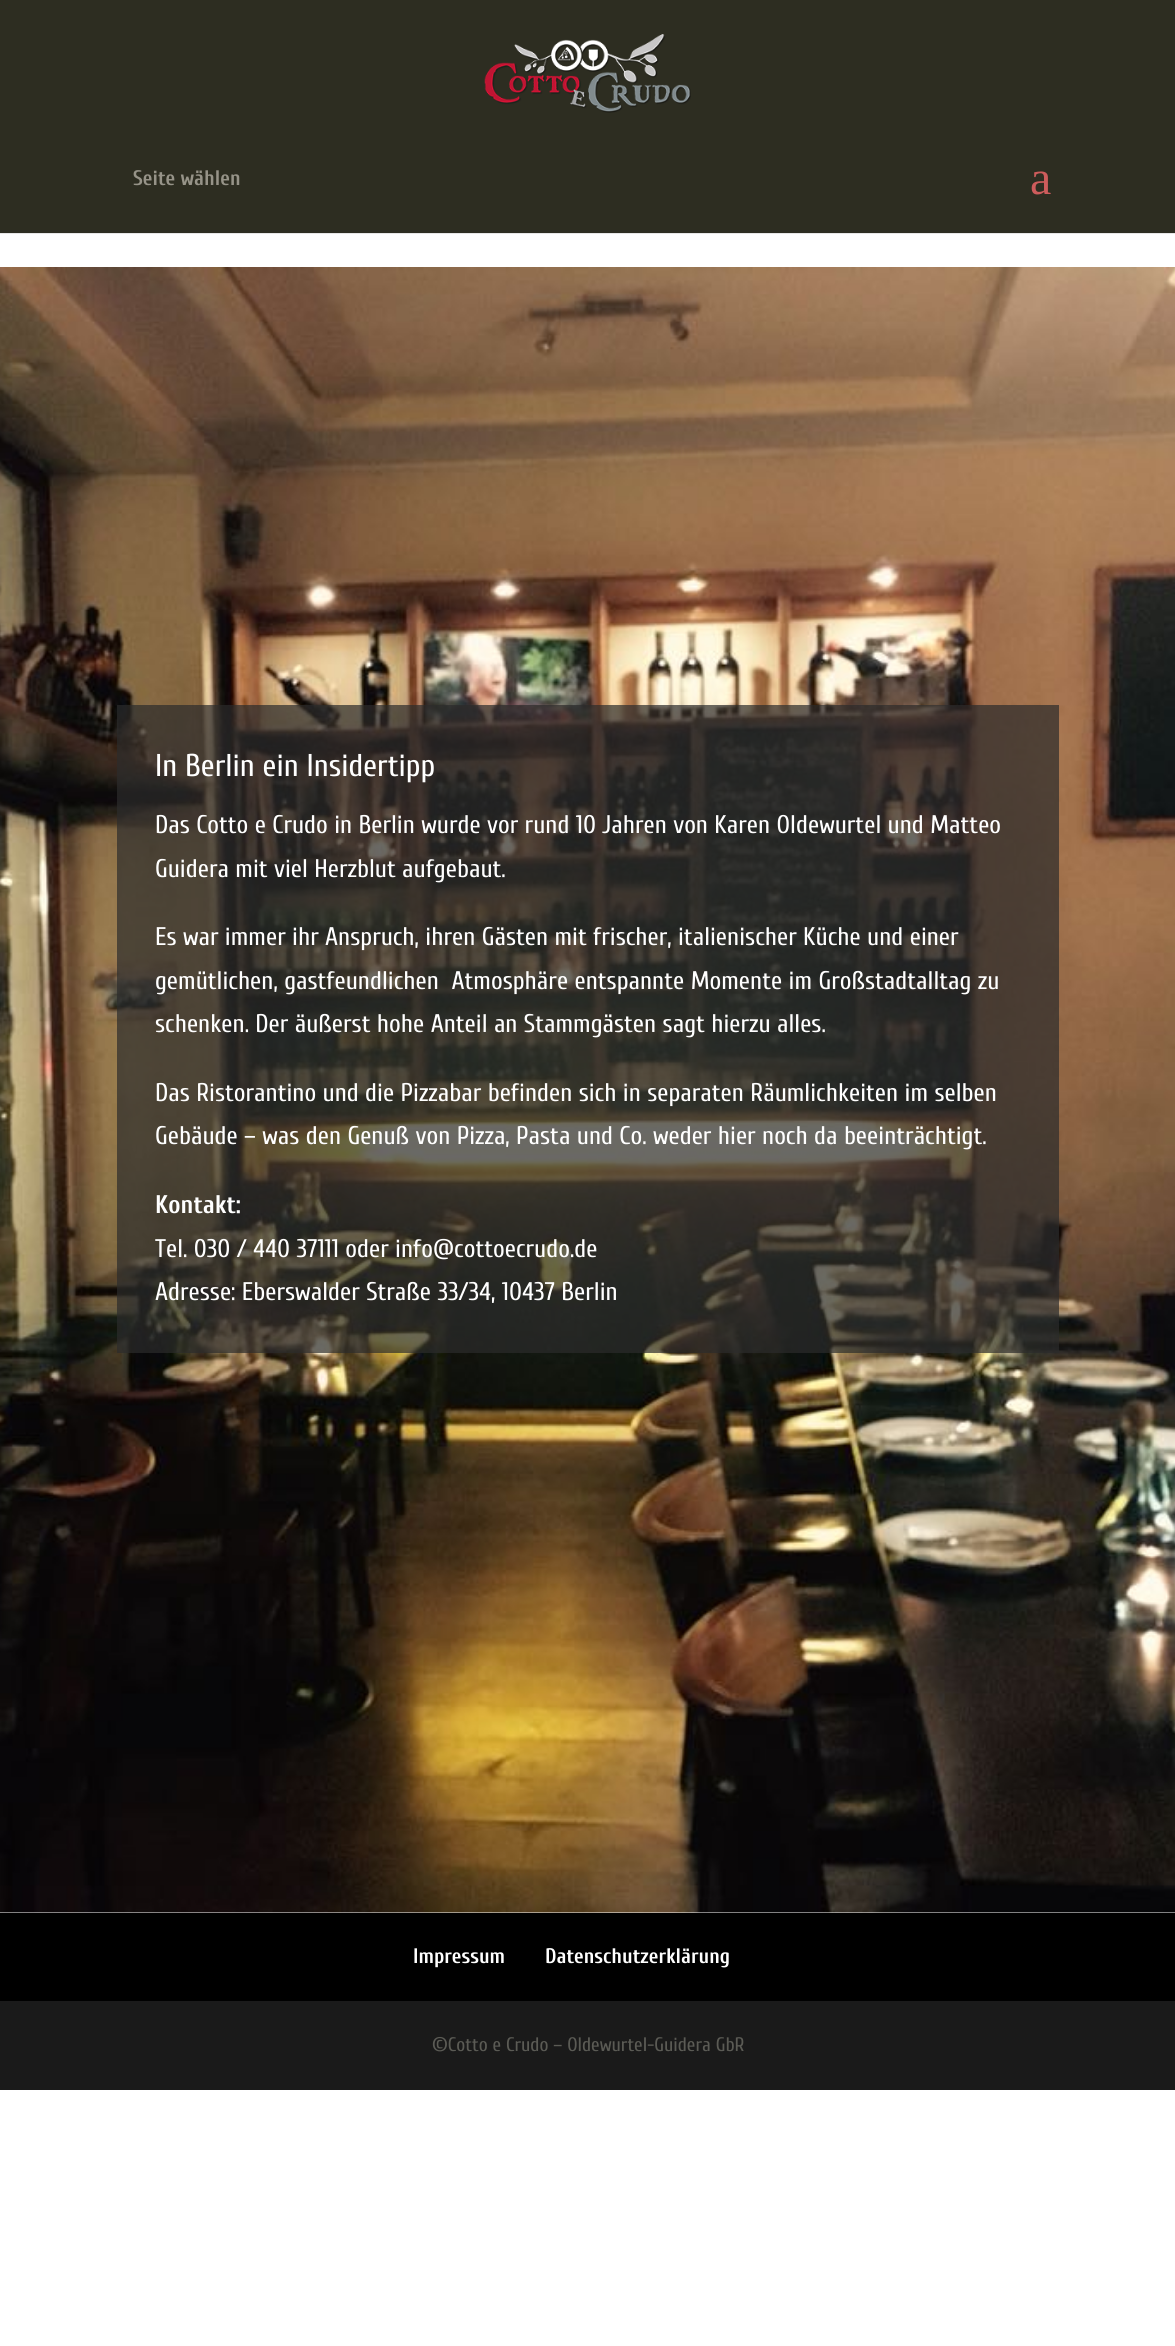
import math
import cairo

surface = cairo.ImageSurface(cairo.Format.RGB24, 1175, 2346)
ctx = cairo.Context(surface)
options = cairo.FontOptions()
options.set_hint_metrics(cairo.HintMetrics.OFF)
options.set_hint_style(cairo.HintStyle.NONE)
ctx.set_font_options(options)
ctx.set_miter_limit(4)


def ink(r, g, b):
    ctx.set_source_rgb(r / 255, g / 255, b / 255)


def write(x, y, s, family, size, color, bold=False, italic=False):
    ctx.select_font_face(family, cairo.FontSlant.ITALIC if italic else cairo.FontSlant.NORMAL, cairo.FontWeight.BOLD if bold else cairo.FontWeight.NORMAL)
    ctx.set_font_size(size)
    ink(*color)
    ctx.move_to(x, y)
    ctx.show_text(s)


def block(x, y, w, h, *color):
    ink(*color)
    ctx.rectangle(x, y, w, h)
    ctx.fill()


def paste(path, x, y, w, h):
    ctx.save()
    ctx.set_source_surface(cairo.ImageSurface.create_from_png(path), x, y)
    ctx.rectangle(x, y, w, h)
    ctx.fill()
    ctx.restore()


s1 = dict(family="Cuprum", size=21, color=(150, 147, 136), bold=True)
s2 = dict(family="Liberation Serif", size=48, color=(205, 92, 92))
s3 = dict(family="Cuprum", size=31.5, color=(255, 255, 255))
s4 = dict(family="Cuprum", size=25.5, color=(255, 255, 255))
s5 = dict(family="Cuprum", size=25.5, color=(255, 255, 255), bold=True)
s6 = dict(family="Cuprum", size=21, color=(255, 255, 255), bold=True)
s7 = dict(family="Cuprum", size=19.5, color=(91, 91, 85))

ink(255, 255, 255)
ctx.paint()
block(0, 233, 1175, 1, 230, 230, 230)
block(0, 0, 1175, 233, 45, 45, 33)
paste("pic1.png", 484, 34, 207, 79)
write(133, 185, "Seite wählen", **s1)
write(1030, 194, "a", **s2)
paste("pic2.png", 0, 267, 1175, 1646)
ctx.set_source_rgba(0.169, 0.169, 0.169, 0.7)
ctx.rectangle(117, 705, 942, 648)
ctx.fill()
write(155, 776, "In Berlin ein Insidertipp", **s3)
write(155, 833, "Das Cotto e Crudo in Berlin wurde vor rund 10 Jahren von Karen Oldewurtel und Matteo", **s4)
write(155, 877, "Guidera mit viel Herzblut aufgebaut.", **s4)
write(155, 945, "Es war immer ihr Anspruch, ihren Gästen mit frischer, italienischer Küche und einer", **s4)
write(155, 989, "gemütlichen, gastfeundlichen  Atmosphäre entspannte Momente im Großstadtalltag zu", **s4)
write(155, 1032, "schenken. Der äußerst hohe Anteil an Stammgästen sagt hierzu alles.", **s4)
write(155, 1101, "Das Ristorantino und die Pizzabar befinden sich in separaten Räumlichkeiten im selben", **s4)
write(155, 1144, "Gebäude – was den Genuß von Pizza, Pasta und Co. weder hier noch da beeinträchtigt.", **s4)
write(155, 1213, "Kontakt:", **s5)
write(155, 1257, "Tel. 030 / 440 37111 oder info@cottoecrudo.de", **s4)
write(155, 1300, "Adresse: Eberswalder Straße 33/34, 10437 Berlin", **s4)
block(0, 1913, 1175, 88, 0, 0, 0)
write(413, 1963, "Impressum", **s6)
write(545, 1963, "Datenschutzerklärung", **s6)
block(0, 2001, 1175, 89, 26, 26, 26)
write(432, 2051, "©Cotto e Crudo – Oldewurtel-Guidera GbR", **s7)
surface.write_to_png("screenshot.png")
